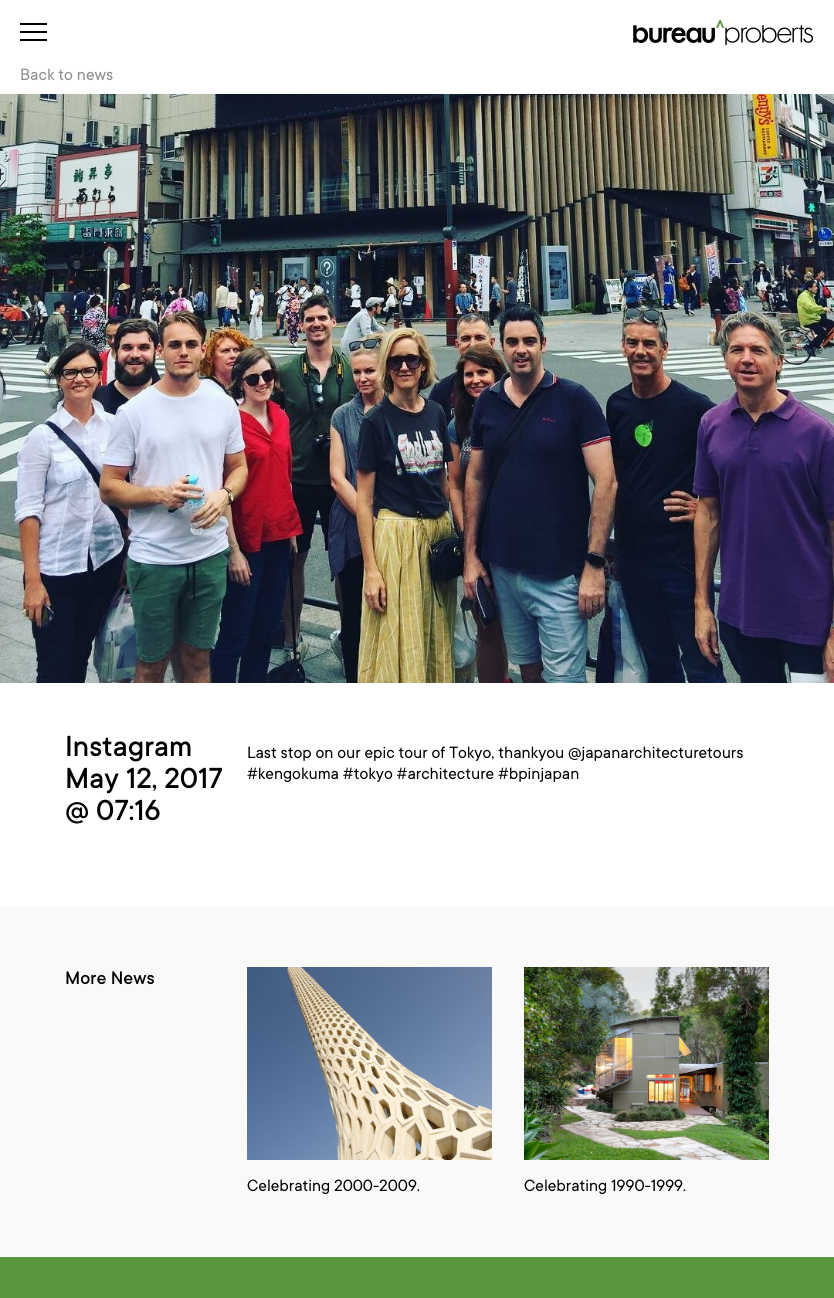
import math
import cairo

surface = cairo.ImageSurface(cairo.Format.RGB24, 834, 1298)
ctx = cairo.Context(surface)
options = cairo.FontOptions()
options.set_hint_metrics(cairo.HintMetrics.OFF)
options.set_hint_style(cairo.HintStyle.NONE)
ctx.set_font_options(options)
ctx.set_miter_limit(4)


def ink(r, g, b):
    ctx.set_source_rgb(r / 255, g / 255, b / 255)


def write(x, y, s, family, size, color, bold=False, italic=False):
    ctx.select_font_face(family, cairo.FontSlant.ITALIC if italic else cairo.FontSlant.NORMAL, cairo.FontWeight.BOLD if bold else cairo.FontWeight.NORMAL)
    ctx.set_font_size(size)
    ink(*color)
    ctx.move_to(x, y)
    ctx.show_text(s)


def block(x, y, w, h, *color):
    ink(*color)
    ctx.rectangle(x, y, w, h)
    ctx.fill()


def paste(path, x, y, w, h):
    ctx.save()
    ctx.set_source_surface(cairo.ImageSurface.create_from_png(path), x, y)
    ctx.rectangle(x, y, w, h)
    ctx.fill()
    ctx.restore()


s1 = dict(family="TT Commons", size=18, color=(140, 140, 140))
s2 = dict(family="TT Commons Medium", size=32, color=(0, 0, 0))
s3 = dict(family="TT Commons", size=18, color=(0, 0, 0))
s4 = dict(family="TT Commons Medium", size=20, color=(0, 0, 0))

ink(89, 150, 64)
ctx.paint()
block(0, 0, 834, 907, 255, 255, 255)
block(20, 31, 27, 2, 0, 0, 0)
block(20, 23, 27, 2, 0, 0, 0)
block(20, 39, 27, 2, 0, 0, 0)
paste("pic1.png", 633, 20, 181, 25)
write(20, 80, "Back to news", **s1)
paste("pic2.png", 0, 94, 834, 589)
write(65, 756, "Instagram", **s2)
write(65, 788, "May 12, 2017", **s2)
write(65, 820, "@ 07:16", **s2)
write(247, 758, "Last stop on our epic tour of Tokyo, thankyou @japanarchitecturetours", **s3)
write(247, 779, "#kengokuma #tokyo #architecture #bpinjapan", **s3)
block(0, 907, 834, 350, 249, 249, 249)
write(65, 984, "More News", **s4)
paste("pic3.png", 247, 967, 245, 193)
write(247, 1191, "Celebrating 2000-2009.", **s3)
paste("pic4.png", 524, 967, 245, 193)
write(524, 1191, "Celebrating 1990-1999.", **s3)
surface.write_to_png("screenshot.png")
